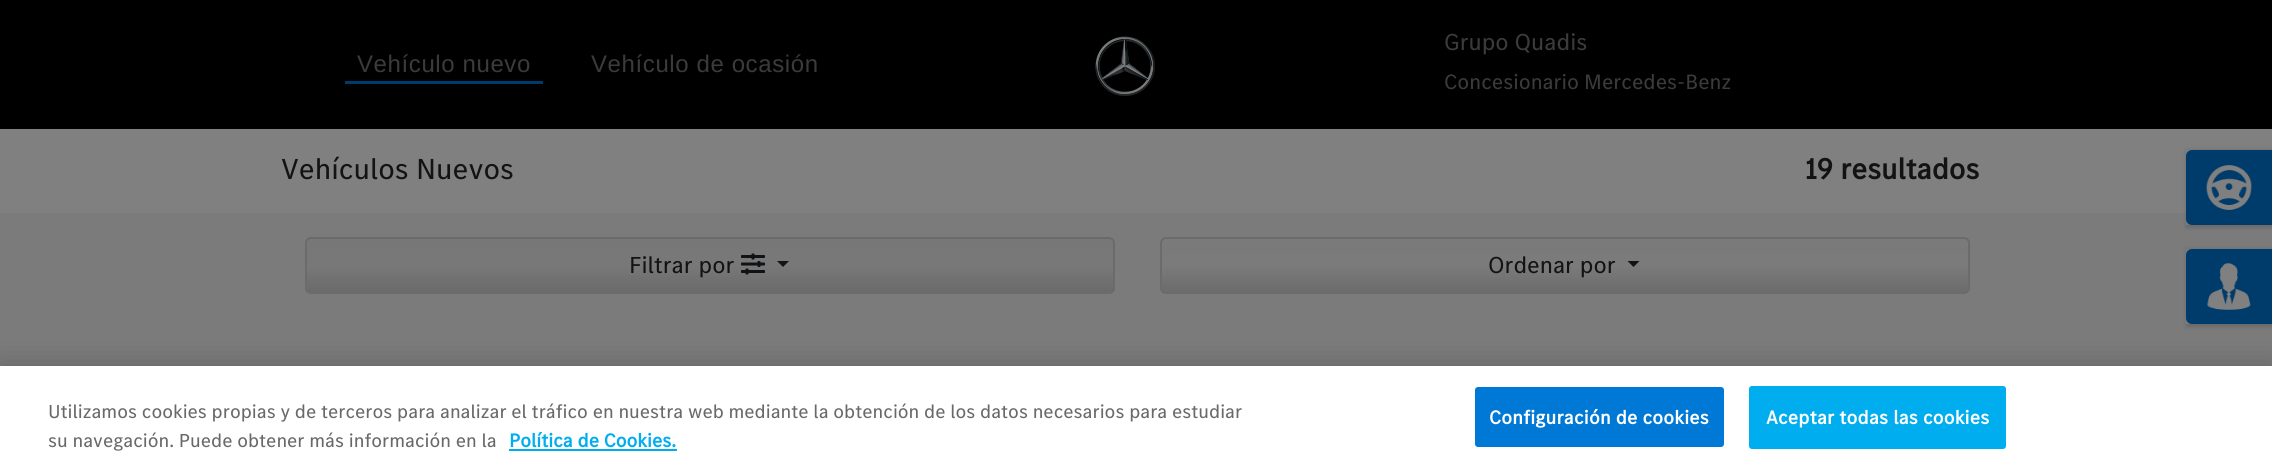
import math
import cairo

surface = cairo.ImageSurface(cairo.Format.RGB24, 2272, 472)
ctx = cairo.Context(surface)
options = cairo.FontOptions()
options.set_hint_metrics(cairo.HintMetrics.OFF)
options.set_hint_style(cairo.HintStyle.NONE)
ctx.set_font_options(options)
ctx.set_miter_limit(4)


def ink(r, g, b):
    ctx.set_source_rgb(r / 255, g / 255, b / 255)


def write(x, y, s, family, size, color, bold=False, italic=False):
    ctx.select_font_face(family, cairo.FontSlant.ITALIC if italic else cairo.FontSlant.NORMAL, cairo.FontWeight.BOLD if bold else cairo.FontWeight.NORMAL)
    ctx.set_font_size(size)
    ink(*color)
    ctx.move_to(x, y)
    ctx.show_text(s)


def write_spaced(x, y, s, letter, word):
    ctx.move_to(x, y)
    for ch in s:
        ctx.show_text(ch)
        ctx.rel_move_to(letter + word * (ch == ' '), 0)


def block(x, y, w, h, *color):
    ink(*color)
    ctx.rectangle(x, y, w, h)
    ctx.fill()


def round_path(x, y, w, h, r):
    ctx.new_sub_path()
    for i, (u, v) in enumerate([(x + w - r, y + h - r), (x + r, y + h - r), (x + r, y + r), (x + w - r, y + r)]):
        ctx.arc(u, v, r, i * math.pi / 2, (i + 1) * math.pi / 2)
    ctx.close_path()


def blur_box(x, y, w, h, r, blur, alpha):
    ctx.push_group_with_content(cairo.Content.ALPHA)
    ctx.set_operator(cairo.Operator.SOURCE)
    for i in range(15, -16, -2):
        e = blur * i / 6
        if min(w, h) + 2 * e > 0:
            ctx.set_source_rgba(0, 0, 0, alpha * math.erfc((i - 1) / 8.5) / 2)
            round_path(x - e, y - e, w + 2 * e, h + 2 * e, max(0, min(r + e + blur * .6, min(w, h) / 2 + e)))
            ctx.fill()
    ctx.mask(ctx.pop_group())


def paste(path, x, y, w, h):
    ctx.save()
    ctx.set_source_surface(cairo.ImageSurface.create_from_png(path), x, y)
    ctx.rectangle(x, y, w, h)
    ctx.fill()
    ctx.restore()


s1 = dict(family="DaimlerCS", size=24, color=(59, 59, 59))
s2 = dict(family="DaimlerCS", size=21.6, color=(59, 59, 59))
s3 = dict(family="DaimlerCS", size=30, color=(19, 19, 19))
s4 = dict(family="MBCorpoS", size=30, color=(19, 19, 19), bold=True)
s5 = dict(family="DaimlerCS", size=24, color=(19, 19, 19))
s6 = dict(family="DaimlerCS", size=19.5, color=(105, 105, 105))
s7 = dict(family="MBCorpoS", size=19.5, color=(0, 173, 239), bold=True)

ink(0, 0, 0)
ctx.paint()
block(345, 81, 198, 3, 0, 60, 107)
ctx.select_font_face("Liberation Sans")
ctx.set_font_size(24)
ink(59, 59, 59)
write_spaced(357, 72, "Vehículo nuevo", 0.6, 0)
write_spaced(591, 72, "Vehículo de ocasión", 0.6, 0)
paste("pic1.png", 1095, 36, 60, 60)
write(1444, 50, "Grupo Quadis", **s1)
write(1444, 89, "Concesionario Mercedes-Benz", **s2)
block(0, 129, 2272, 84, 128, 128, 128)
write(281, 179, "Vehículos Nuevos", **s3)
write(1805, 179, "19 resultados", **s4)
block(0, 213, 2272, 153, 123, 123, 123)
ctx.save()
ctx.set_fill_rule(cairo.FillRule.EVEN_ODD)
ctx.new_path()
ctx.move_to(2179, 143)
ctx.line_to(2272, 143)
ctx.line_to(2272, 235)
ctx.line_to(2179, 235)
ctx.close_path()
ctx.move_to(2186, 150)
ctx.line_to(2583, 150)
ctx.line_to(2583, 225)
ctx.line_to(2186, 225)
ctx.close_path()
ctx.clip()
ink(0, 0, 0)
blur_box(2186, 150, 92, 78, 0, 2, 0.15)
ctx.restore()
ink(0, 60, 107)
round_path(2186, 150, 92, 75, 6)
ctx.fill()
paste("pic2.png", 2206, 165, 46, 45)
ctx.save()
ctx.set_fill_rule(cairo.FillRule.EVEN_ODD)
ctx.new_path()
ctx.move_to(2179, 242)
ctx.line_to(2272, 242)
ctx.line_to(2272, 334)
ctx.line_to(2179, 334)
ctx.close_path()
ctx.move_to(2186, 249)
ctx.line_to(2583, 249)
ctx.line_to(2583, 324)
ctx.line_to(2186, 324)
ctx.close_path()
ctx.clip()
ink(0, 0, 0)
blur_box(2186, 249, 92, 78, 0, 2, 0.15)
ctx.restore()
round_path(2186, 249, 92, 75, 6)
ctx.fill()
paste("pic3.png", 2207, 263, 44, 47)
ctx.save()
round_path(305, 237, 810, 57, 6)
ctx.clip()
gradient = cairo.LinearGradient(710, 238, 710, 293)
gradient.add_color_stop_rgba(0, 0.467, 0.467, 0.467, 1)
gradient.add_color_stop_rgba(0.5, 0.471, 0.471, 0.471, 1)
gradient.add_color_stop_rgba(1, 0.416, 0.416, 0.416, 1)
ctx.set_source(gradient)
ctx.rectangle(305, 239, 810, 54)
ctx.fill()
ctx.restore()
round_path(306, 238, 808, 55, 5)
ink(107, 107, 107)
ctx.stroke()
write(629, 273, "Filtrar por", **s5)
paste("pic4.png", 741, 253, 24, 22)
ink(17, 19, 21)
ctx.new_path()
ctx.move_to(777, 261)
ctx.line_to(789, 261)
ctx.line_to(783, 267)
ctx.close_path()
ctx.fill()
ctx.save()
round_path(1160, 237, 810, 57, 6)
ctx.clip()
gradient = cairo.LinearGradient(1565, 238, 1565, 293)
gradient.add_color_stop_rgba(0, 0.478, 0.478, 0.478, 1)
gradient.add_color_stop_rgba(0.5, 0.486, 0.482, 0.482, 1)
gradient.add_color_stop_rgba(1, 0.42, 0.42, 0.42, 1)
ctx.set_source(gradient)
ctx.rectangle(1160, 239, 810, 54)
ctx.fill()
ctx.restore()
round_path(1161, 238, 808, 55, 5)
ink(107, 107, 107)
ctx.stroke()
write(1488, 273, "Ordenar por", **s5)
ink(17, 19, 21)
ctx.new_path()
ctx.move_to(1627.5, 261)
ctx.line_to(1639.5, 261)
ctx.line_to(1633.5, 267)
ctx.close_path()
ctx.fill()
ink(0, 0, 0)
blur_box(0, 366, 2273, 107, 0, 13.5, 0.2)
block(0, 366, 2272, 106, 255, 255, 255)
write(48, 418, "Utilizamos cookies propias y de terceros para analizar el tráfico en nuestra web mediante la obtención de los datos necesarios para estudiar", **s6)
write(48, 447, "su navegación. Puede obtener más información en la", **s6)
write(509, 447, "Política de Cookies.", **s7)
block(509, 449, 168, 2, 0, 173, 239)
ink(0, 120, 214)
round_path(1475, 387, 249, 60, 3)
ctx.fill()
ink(255, 255, 255)
write_spaced(1489, 424, "Configuración de cookies", 0.2, 0)
ink(0, 173, 239)
round_path(1750, 387, 255, 61, 2)
ctx.fill_preserve()
ctx.stroke()
ink(255, 255, 255)
write_spaced(1766, 424, "Aceptar todas las cookies", 0.2, 0)
surface.write_to_png("screenshot.png")
